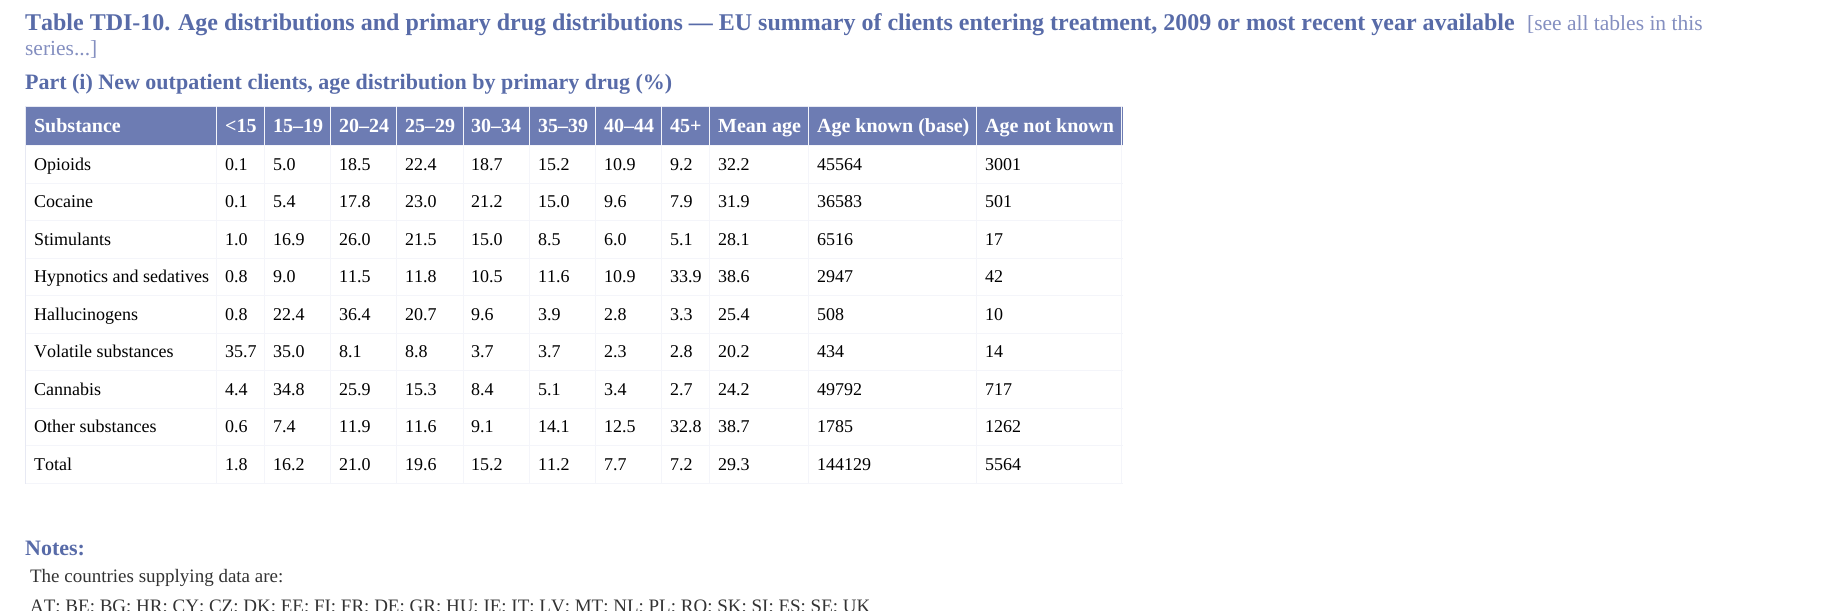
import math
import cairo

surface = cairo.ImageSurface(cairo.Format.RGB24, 1830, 611)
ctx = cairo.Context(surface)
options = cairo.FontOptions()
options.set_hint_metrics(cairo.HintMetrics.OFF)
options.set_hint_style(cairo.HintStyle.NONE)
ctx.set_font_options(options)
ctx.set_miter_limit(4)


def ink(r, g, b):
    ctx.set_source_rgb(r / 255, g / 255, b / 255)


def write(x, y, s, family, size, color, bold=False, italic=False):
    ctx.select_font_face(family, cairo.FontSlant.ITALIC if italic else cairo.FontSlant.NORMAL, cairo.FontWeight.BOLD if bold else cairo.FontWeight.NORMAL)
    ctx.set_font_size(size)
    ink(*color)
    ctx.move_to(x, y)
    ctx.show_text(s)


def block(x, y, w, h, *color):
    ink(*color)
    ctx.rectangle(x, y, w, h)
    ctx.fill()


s1 = dict(family="Liberation Serif", size=24, color=(88, 107, 168), bold=True)
s2 = dict(family="Liberation Serif", size=21.5, color=(132, 143, 192))
s3 = dict(family="Liberation Serif", size=22, color=(88, 107, 168), bold=True)
s4 = dict(family="Liberation Serif", size=20, color=(255, 255, 255), bold=True)
s5 = dict(family="Liberation Serif", size=18, color=(0, 0, 0))
s6 = dict(family="Liberation Serif", size=19, color=(51, 51, 51))

ink(255, 255, 255)
ctx.paint()
write(25, 30, "Table TDI-10.", **s1)
write(178, 30, "Age distributions and primary drug distributions — EU summary of clients entering treatment, 2009 or most recent year available", **s1)
write(1527, 30, "[see all tables in this", **s2)
write(25, 55, "series...]", **s2)
write(25, 89, "Part (i) New outpatient clients, age distribution by primary drug (%)", **s3)
block(25, 106, 1098, 1, 231, 233, 243)
block(26, 107, 190, 38, 109, 124, 179)
block(331, 107, 132, 38, 109, 124, 179)
block(596, 107, 113, 38, 109, 124, 179)
block(809, 107, 314, 38, 109, 124, 179)
block(1121, 145, 1, 339, 244, 245, 250)
block(1121, 106, 1, 40, 244, 245, 250)
block(976, 483, 147, 1, 244, 245, 250)
block(976, 445, 1, 39, 244, 245, 250)
block(976, 445, 147, 1, 244, 245, 250)
block(976, 408, 1, 38, 244, 245, 250)
block(976, 408, 147, 1, 244, 245, 250)
block(976, 370, 1, 39, 244, 245, 250)
block(976, 370, 147, 1, 244, 245, 250)
block(976, 333, 1, 38, 244, 245, 250)
block(976, 333, 147, 1, 244, 245, 250)
block(976, 295, 1, 39, 244, 245, 250)
block(976, 295, 147, 1, 244, 245, 250)
block(976, 258, 1, 38, 244, 245, 250)
block(976, 258, 147, 1, 244, 245, 250)
block(976, 220, 1, 39, 244, 245, 250)
block(976, 220, 147, 1, 244, 245, 250)
block(976, 183, 1, 38, 244, 245, 250)
block(976, 183, 147, 1, 244, 245, 250)
block(976, 145, 1, 39, 244, 245, 250)
block(976, 145, 147, 1, 244, 245, 250)
block(976, 106, 1, 40, 244, 245, 250)
block(808, 483, 170, 1, 244, 245, 250)
block(808, 445, 1, 39, 244, 245, 250)
block(808, 445, 170, 1, 244, 245, 250)
block(808, 408, 1, 38, 244, 245, 250)
block(808, 408, 170, 1, 244, 245, 250)
block(808, 370, 1, 39, 244, 245, 250)
block(808, 370, 170, 1, 244, 245, 250)
block(808, 333, 1, 38, 244, 245, 250)
block(808, 333, 170, 1, 244, 245, 250)
block(808, 295, 1, 39, 244, 245, 250)
block(808, 295, 170, 1, 244, 245, 250)
block(808, 258, 1, 38, 244, 245, 250)
block(808, 258, 170, 1, 244, 245, 250)
block(808, 220, 1, 39, 244, 245, 250)
block(808, 220, 170, 1, 244, 245, 250)
block(808, 183, 1, 38, 244, 245, 250)
block(808, 183, 170, 1, 244, 245, 250)
block(808, 145, 1, 39, 244, 245, 250)
block(808, 145, 170, 1, 244, 245, 250)
block(808, 106, 1, 40, 244, 245, 250)
block(709, 483, 100, 1, 244, 245, 250)
block(709, 445, 1, 39, 244, 245, 250)
block(709, 445, 100, 1, 244, 245, 250)
block(709, 408, 1, 38, 244, 245, 250)
block(709, 408, 100, 1, 244, 245, 250)
block(709, 370, 1, 39, 244, 245, 250)
block(709, 370, 100, 1, 244, 245, 250)
block(709, 333, 1, 38, 244, 245, 250)
block(709, 333, 100, 1, 244, 245, 250)
block(709, 295, 1, 39, 244, 245, 250)
block(709, 295, 100, 1, 244, 245, 250)
block(709, 258, 1, 38, 244, 245, 250)
block(709, 258, 100, 1, 244, 245, 250)
block(709, 220, 1, 39, 244, 245, 250)
block(709, 220, 100, 1, 244, 245, 250)
block(709, 183, 1, 38, 244, 245, 250)
block(709, 183, 100, 1, 244, 245, 250)
block(709, 145, 1, 39, 244, 245, 250)
block(709, 145, 100, 1, 244, 245, 250)
block(709, 106, 1, 40, 244, 245, 250)
block(661, 483, 49, 1, 244, 245, 250)
block(661, 445, 1, 39, 244, 245, 250)
block(661, 445, 49, 1, 244, 245, 250)
block(661, 408, 1, 38, 244, 245, 250)
block(661, 408, 49, 1, 244, 245, 250)
block(661, 370, 1, 39, 244, 245, 250)
block(661, 370, 49, 1, 244, 245, 250)
block(661, 333, 1, 38, 244, 245, 250)
block(661, 333, 49, 1, 244, 245, 250)
block(661, 295, 1, 39, 244, 245, 250)
block(661, 295, 49, 1, 244, 245, 250)
block(661, 258, 1, 38, 244, 245, 250)
block(661, 258, 49, 1, 244, 245, 250)
block(661, 220, 1, 39, 244, 245, 250)
block(661, 220, 49, 1, 244, 245, 250)
block(661, 183, 1, 38, 244, 245, 250)
block(661, 183, 49, 1, 244, 245, 250)
block(661, 145, 1, 39, 244, 245, 250)
block(661, 145, 49, 1, 244, 245, 250)
block(661, 106, 1, 40, 244, 245, 250)
block(595, 483, 68, 1, 244, 245, 250)
block(595, 445, 1, 39, 244, 245, 250)
block(595, 445, 68, 1, 244, 245, 250)
block(595, 408, 1, 38, 244, 245, 250)
block(595, 408, 68, 1, 244, 245, 250)
block(595, 370, 1, 39, 244, 245, 250)
block(595, 370, 68, 1, 244, 245, 250)
block(595, 333, 1, 38, 244, 245, 250)
block(595, 333, 68, 1, 244, 245, 250)
block(595, 295, 1, 39, 244, 245, 250)
block(595, 295, 68, 1, 244, 245, 250)
block(595, 258, 1, 38, 244, 245, 250)
block(595, 258, 68, 1, 244, 245, 250)
block(595, 220, 1, 39, 244, 245, 250)
block(595, 220, 68, 1, 244, 245, 250)
block(595, 183, 1, 38, 244, 245, 250)
block(595, 183, 68, 1, 244, 245, 250)
block(595, 145, 1, 39, 244, 245, 250)
block(595, 145, 68, 1, 244, 245, 250)
block(595, 106, 1, 40, 244, 245, 250)
block(529, 483, 67, 1, 244, 245, 250)
block(529, 445, 1, 39, 244, 245, 250)
block(529, 445, 67, 1, 244, 245, 250)
block(529, 408, 1, 38, 244, 245, 250)
block(529, 408, 67, 1, 244, 245, 250)
block(529, 370, 1, 39, 244, 245, 250)
block(529, 370, 67, 1, 244, 245, 250)
block(529, 333, 1, 38, 244, 245, 250)
block(529, 333, 67, 1, 244, 245, 250)
block(529, 295, 1, 39, 244, 245, 250)
block(529, 295, 67, 1, 244, 245, 250)
block(529, 258, 1, 38, 244, 245, 250)
block(529, 258, 67, 1, 244, 245, 250)
block(529, 220, 1, 39, 244, 245, 250)
block(529, 220, 67, 1, 244, 245, 250)
block(529, 183, 1, 38, 244, 245, 250)
block(529, 183, 67, 1, 244, 245, 250)
block(529, 145, 1, 39, 244, 245, 250)
block(529, 145, 67, 1, 244, 245, 250)
block(529, 106, 1, 40, 244, 245, 250)
block(463, 483, 67, 1, 244, 245, 250)
block(463, 445, 1, 39, 244, 245, 250)
block(463, 445, 67, 1, 244, 245, 250)
block(463, 408, 1, 38, 244, 245, 250)
block(463, 408, 67, 1, 244, 245, 250)
block(463, 370, 1, 39, 244, 245, 250)
block(463, 370, 67, 1, 244, 245, 250)
block(463, 333, 1, 38, 244, 245, 250)
block(463, 333, 67, 1, 244, 245, 250)
block(463, 295, 1, 39, 244, 245, 250)
block(463, 295, 67, 1, 244, 245, 250)
block(463, 258, 1, 38, 244, 245, 250)
block(463, 258, 67, 1, 244, 245, 250)
block(463, 220, 1, 39, 244, 245, 250)
block(463, 220, 67, 1, 244, 245, 250)
block(463, 183, 1, 38, 244, 245, 250)
block(463, 183, 67, 1, 244, 245, 250)
block(463, 145, 1, 39, 244, 245, 250)
block(463, 145, 67, 1, 244, 245, 250)
block(463, 106, 1, 40, 244, 245, 250)
block(396, 483, 68, 1, 244, 245, 250)
block(396, 445, 1, 39, 244, 245, 250)
block(396, 445, 68, 1, 244, 245, 250)
block(396, 408, 1, 38, 244, 245, 250)
block(396, 408, 68, 1, 244, 245, 250)
block(396, 370, 1, 39, 244, 245, 250)
block(396, 370, 68, 1, 244, 245, 250)
block(396, 333, 1, 38, 244, 245, 250)
block(396, 333, 68, 1, 244, 245, 250)
block(396, 295, 1, 39, 244, 245, 250)
block(396, 295, 68, 1, 244, 245, 250)
block(396, 258, 1, 38, 244, 245, 250)
block(396, 258, 68, 1, 244, 245, 250)
block(396, 220, 1, 39, 244, 245, 250)
block(396, 220, 68, 1, 244, 245, 250)
block(396, 183, 1, 38, 244, 245, 250)
block(396, 183, 68, 1, 244, 245, 250)
block(396, 145, 1, 39, 244, 245, 250)
block(396, 145, 68, 1, 244, 245, 250)
block(396, 106, 1, 40, 244, 245, 250)
block(330, 483, 68, 1, 244, 245, 250)
block(330, 445, 1, 39, 244, 245, 250)
block(330, 445, 68, 1, 244, 245, 250)
block(330, 408, 1, 38, 244, 245, 250)
block(330, 408, 68, 1, 244, 245, 250)
block(330, 370, 1, 39, 244, 245, 250)
block(330, 370, 68, 1, 244, 245, 250)
block(330, 333, 1, 38, 244, 245, 250)
block(330, 333, 68, 1, 244, 245, 250)
block(330, 295, 1, 39, 244, 245, 250)
block(330, 295, 68, 1, 244, 245, 250)
block(330, 258, 1, 38, 244, 245, 250)
block(330, 258, 68, 1, 244, 245, 250)
block(330, 220, 1, 39, 244, 245, 250)
block(330, 220, 68, 1, 244, 245, 250)
block(330, 183, 1, 38, 244, 245, 250)
block(330, 183, 68, 1, 244, 245, 250)
block(330, 145, 1, 39, 244, 245, 250)
block(330, 145, 68, 1, 244, 245, 250)
block(330, 106, 1, 40, 244, 245, 250)
block(264, 483, 67, 1, 244, 245, 250)
block(264, 445, 1, 39, 244, 245, 250)
block(264, 445, 67, 1, 244, 245, 250)
block(264, 408, 1, 38, 244, 245, 250)
block(264, 408, 67, 1, 244, 245, 250)
block(264, 370, 1, 39, 244, 245, 250)
block(264, 370, 67, 1, 244, 245, 250)
block(264, 333, 1, 38, 244, 245, 250)
block(264, 333, 67, 1, 244, 245, 250)
block(264, 295, 1, 39, 244, 245, 250)
block(264, 295, 67, 1, 244, 245, 250)
block(264, 258, 1, 38, 244, 245, 250)
block(264, 258, 67, 1, 244, 245, 250)
block(264, 220, 1, 39, 244, 245, 250)
block(264, 220, 67, 1, 244, 245, 250)
block(264, 183, 1, 38, 244, 245, 250)
block(264, 183, 67, 1, 244, 245, 250)
block(264, 145, 1, 39, 244, 245, 250)
block(264, 145, 67, 1, 244, 245, 250)
block(264, 106, 1, 40, 244, 245, 250)
block(216, 483, 49, 1, 244, 245, 250)
block(216, 445, 1, 39, 244, 245, 250)
block(216, 445, 49, 1, 244, 245, 250)
block(216, 408, 1, 38, 244, 245, 250)
block(216, 408, 49, 1, 244, 245, 250)
block(216, 370, 1, 39, 244, 245, 250)
block(216, 370, 49, 1, 244, 245, 250)
block(216, 333, 1, 38, 244, 245, 250)
block(216, 333, 49, 1, 244, 245, 250)
block(216, 295, 1, 39, 244, 245, 250)
block(216, 295, 49, 1, 244, 245, 250)
block(216, 258, 1, 38, 244, 245, 250)
block(216, 258, 49, 1, 244, 245, 250)
block(216, 220, 1, 39, 244, 245, 250)
block(216, 220, 49, 1, 244, 245, 250)
block(216, 183, 1, 38, 244, 245, 250)
block(216, 183, 49, 1, 244, 245, 250)
block(216, 145, 1, 39, 244, 245, 250)
block(216, 145, 49, 1, 244, 245, 250)
block(216, 106, 1, 40, 244, 245, 250)
block(25, 483, 193, 1, 244, 245, 250)
block(25, 445, 1, 39, 231, 233, 243)
block(25, 445, 193, 1, 244, 245, 250)
block(25, 408, 1, 38, 231, 233, 243)
block(25, 408, 193, 1, 244, 245, 250)
block(25, 370, 1, 39, 231, 233, 243)
block(25, 370, 193, 1, 244, 245, 250)
block(25, 333, 1, 38, 231, 233, 243)
block(25, 333, 193, 1, 244, 245, 250)
block(25, 295, 1, 39, 231, 233, 243)
block(25, 295, 193, 1, 244, 245, 250)
block(25, 258, 1, 38, 231, 233, 243)
block(25, 258, 193, 1, 244, 245, 250)
block(25, 220, 1, 39, 231, 233, 243)
block(25, 220, 193, 1, 244, 245, 250)
block(25, 183, 1, 38, 231, 233, 243)
block(25, 183, 193, 1, 244, 245, 250)
block(25, 145, 1, 39, 231, 233, 243)
block(25, 145, 193, 1, 244, 245, 250)
block(25, 106, 1, 40, 231, 233, 243)
write(34, 132, "Substance", **s4)
block(217, 107, 47, 38, 109, 124, 179)
write(225, 132, "<15", **s4)
block(265, 107, 65, 38, 109, 124, 179)
write(273, 132, "15–19", **s4)
write(339, 132, "20–24", **s4)
write(405, 132, "25–29", **s4)
block(464, 107, 65, 38, 109, 124, 179)
write(471, 132, "30–34", **s4)
block(530, 107, 65, 38, 109, 124, 179)
write(538, 132, "35–39", **s4)
write(604, 132, "40–44", **s4)
write(670, 132, "45+", **s4)
block(710, 107, 98, 38, 109, 124, 179)
write(718, 132, "Mean age", **s4)
write(817, 132, "Age known (base)", **s4)
write(985, 132, "Age not known", **s4)
write(34, 170, "Opioids", **s5)
write(225, 170, "0.1", **s5)
write(273, 170, "5.0", **s5)
write(339, 170, "18.5", **s5)
write(405, 170, "22.4", **s5)
write(471, 170, "18.7", **s5)
write(538, 170, "15.2", **s5)
write(604, 170, "10.9", **s5)
write(670, 170, "9.2", **s5)
write(718, 170, "32.2", **s5)
write(817, 170, "45564", **s5)
write(985, 170, "3001", **s5)
write(34, 207, "Cocaine", **s5)
write(225, 207, "0.1", **s5)
write(273, 207, "5.4", **s5)
write(339, 207, "17.8", **s5)
write(405, 207, "23.0", **s5)
write(471, 207, "21.2", **s5)
write(538, 207, "15.0", **s5)
write(604, 207, "9.6", **s5)
write(670, 207, "7.9", **s5)
write(718, 207, "31.9", **s5)
write(817, 207, "36583", **s5)
write(985, 207, "501", **s5)
write(34, 245, "Stimulants", **s5)
write(225, 245, "1.0", **s5)
write(273, 245, "16.9", **s5)
write(339, 245, "26.0", **s5)
write(405, 245, "21.5", **s5)
write(471, 245, "15.0", **s5)
write(538, 245, "8.5", **s5)
write(604, 245, "6.0", **s5)
write(670, 245, "5.1", **s5)
write(718, 245, "28.1", **s5)
write(817, 245, "6516", **s5)
write(985, 245, "17", **s5)
write(34, 282, "Hypnotics and sedatives", **s5)
write(225, 282, "0.8", **s5)
write(273, 282, "9.0", **s5)
write(339, 282, "11.5", **s5)
write(405, 282, "11.8", **s5)
write(471, 282, "10.5", **s5)
write(538, 282, "11.6", **s5)
write(604, 282, "10.9", **s5)
write(670, 282, "33.9", **s5)
write(718, 282, "38.6", **s5)
write(817, 282, "2947", **s5)
write(985, 282, "42", **s5)
write(34, 320, "Hallucinogens", **s5)
write(225, 320, "0.8", **s5)
write(273, 320, "22.4", **s5)
write(339, 320, "36.4", **s5)
write(405, 320, "20.7", **s5)
write(471, 320, "9.6", **s5)
write(538, 320, "3.9", **s5)
write(604, 320, "2.8", **s5)
write(670, 320, "3.3", **s5)
write(718, 320, "25.4", **s5)
write(817, 320, "508", **s5)
write(985, 320, "10", **s5)
write(34, 357, "Volatile substances", **s5)
write(225, 357, "35.7", **s5)
write(273, 357, "35.0", **s5)
write(339, 357, "8.1", **s5)
write(405, 357, "8.8", **s5)
write(471, 357, "3.7", **s5)
write(538, 357, "3.7", **s5)
write(604, 357, "2.3", **s5)
write(670, 357, "2.8", **s5)
write(718, 357, "20.2", **s5)
write(817, 357, "434", **s5)
write(985, 357, "14", **s5)
write(34, 395, "Cannabis", **s5)
write(225, 395, "4.4", **s5)
write(273, 395, "34.8", **s5)
write(339, 395, "25.9", **s5)
write(405, 395, "15.3", **s5)
write(471, 395, "8.4", **s5)
write(538, 395, "5.1", **s5)
write(604, 395, "3.4", **s5)
write(670, 395, "2.7", **s5)
write(718, 395, "24.2", **s5)
write(817, 395, "49792", **s5)
write(985, 395, "717", **s5)
write(34, 432, "Other substances", **s5)
write(225, 432, "0.6", **s5)
write(273, 432, "7.4", **s5)
write(339, 432, "11.9", **s5)
write(405, 432, "11.6", **s5)
write(471, 432, "9.1", **s5)
write(538, 432, "14.1", **s5)
write(604, 432, "12.5", **s5)
write(670, 432, "32.8", **s5)
write(718, 432, "38.7", **s5)
write(817, 432, "1785", **s5)
write(985, 432, "1262", **s5)
write(34, 470, "Total", **s5)
write(225, 470, "1.8", **s5)
write(273, 470, "16.2", **s5)
write(339, 470, "21.0", **s5)
write(405, 470, "19.6", **s5)
write(471, 470, "15.2", **s5)
write(538, 470, "11.2", **s5)
write(604, 470, "7.7", **s5)
write(670, 470, "7.2", **s5)
write(718, 470, "29.3", **s5)
write(817, 470, "144129", **s5)
write(985, 470, "5564", **s5)
write(25, 555, "Notes:", **s3)
write(30, 582, "The countries supplying data are:", **s6)
write(30, 612, "AT; BE; BG; HR; CY; CZ; DK; EE; FI; FR; DE; GR; HU; IE; IT; LV; MT; NL; PL; RO; SK; SI; ES; SE; UK", **s6)
surface.write_to_png("screenshot.png")
